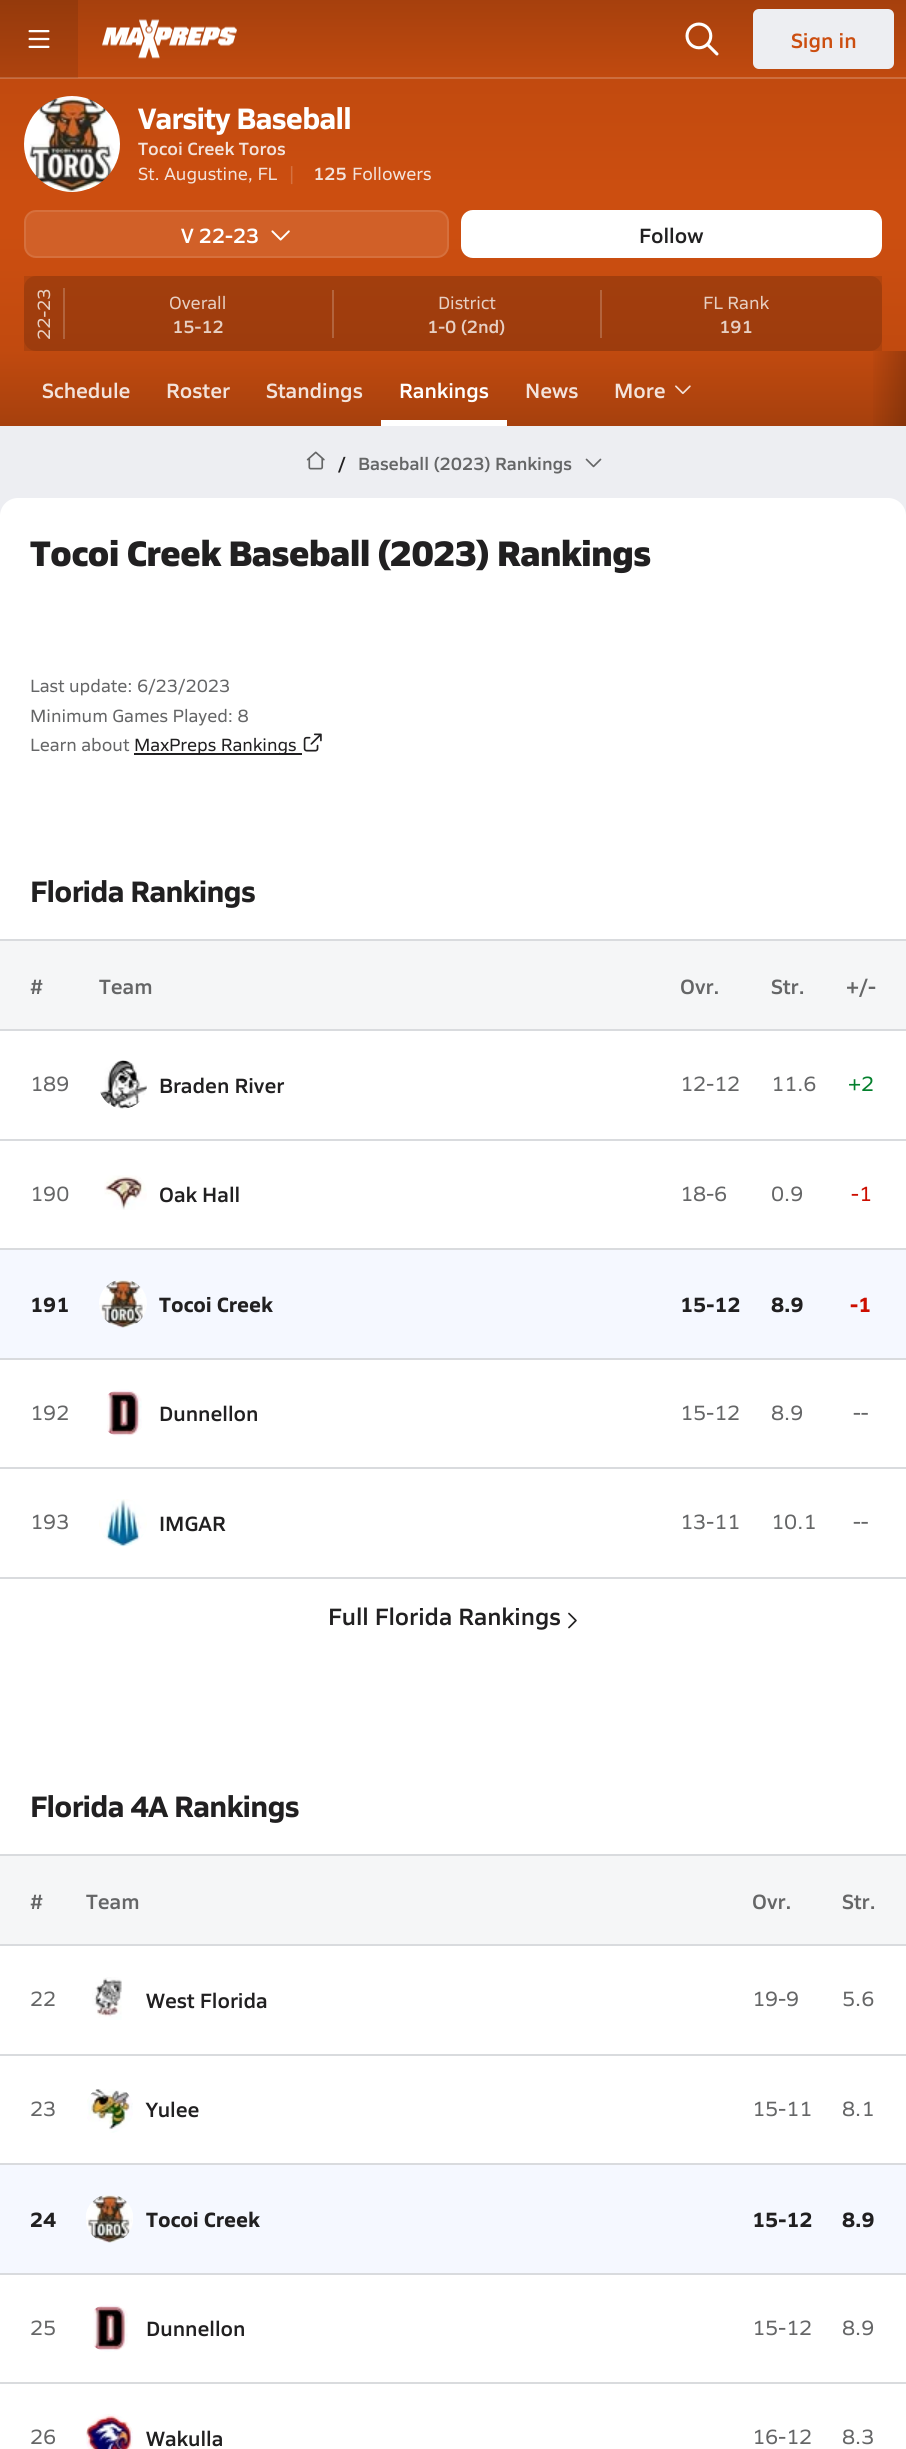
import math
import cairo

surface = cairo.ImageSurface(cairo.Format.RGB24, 906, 2449)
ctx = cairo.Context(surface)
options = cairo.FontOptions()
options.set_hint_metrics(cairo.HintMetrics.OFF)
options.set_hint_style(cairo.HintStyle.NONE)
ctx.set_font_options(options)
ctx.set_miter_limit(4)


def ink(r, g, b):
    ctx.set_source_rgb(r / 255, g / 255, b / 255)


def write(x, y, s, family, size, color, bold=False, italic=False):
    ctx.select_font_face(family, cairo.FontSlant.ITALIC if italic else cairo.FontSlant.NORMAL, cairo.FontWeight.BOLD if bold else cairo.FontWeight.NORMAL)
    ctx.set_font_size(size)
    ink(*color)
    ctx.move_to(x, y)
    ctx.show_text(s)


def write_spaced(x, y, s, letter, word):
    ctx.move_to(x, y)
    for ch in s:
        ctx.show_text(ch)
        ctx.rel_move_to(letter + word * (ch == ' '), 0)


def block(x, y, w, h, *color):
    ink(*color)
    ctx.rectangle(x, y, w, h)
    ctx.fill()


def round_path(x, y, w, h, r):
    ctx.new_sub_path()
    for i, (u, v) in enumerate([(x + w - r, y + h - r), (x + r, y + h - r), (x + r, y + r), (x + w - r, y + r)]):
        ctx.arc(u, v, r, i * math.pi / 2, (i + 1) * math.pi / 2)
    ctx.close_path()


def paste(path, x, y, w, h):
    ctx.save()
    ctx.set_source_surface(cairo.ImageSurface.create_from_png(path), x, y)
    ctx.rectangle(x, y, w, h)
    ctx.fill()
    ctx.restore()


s1 = dict(family="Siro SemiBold", size=21, color=(204, 78, 16))
s2 = dict(family="Siro SemiBold", size=18, color=(243, 227, 219))
s3 = dict(family="Siro", size=18, color=(243, 227, 219))
s4 = dict(family="Siro", size=18, color=(213, 113, 64))
s5 = dict(family="Siro SemiBold", size=21, color=(255, 255, 255))
s6 = dict(family="Siro SemiBold", size=21, color=(33, 32, 33))
s7 = dict(family="Siro", size=18, color=(231, 207, 194))
s8 = dict(family="Siro SemiBold", size=18, color=(231, 207, 194))
s9 = dict(family="Siro SemiBold", size=21, color=(243, 227, 219))
s10 = dict(family="Siro SemiBold", size=18, color=(33, 32, 33))
s11 = dict(family="Siro SemiBold", size=18, color=(101, 102, 103))
s12 = dict(family="Siro", size=18, color=(101, 102, 103))
s13 = dict(family="Siro", size=18, color=(33, 32, 33))
s14 = dict(family="Siro SemiBold", size=21, color=(101, 102, 103))
s15 = dict(family="Siro", size=21, color=(101, 102, 103))
s16 = dict(family="Siro", size=21, color=(4, 128, 45))
s17 = dict(family="Siro", size=21, color=(204, 14, 0))
s18 = dict(family="Siro", size=21, color=(33, 32, 33), bold=True)
s19 = dict(family="Siro", size=21, color=(204, 14, 0), bold=True)
s20 = dict(family="Siro SemiBold", size=24, color=(33, 32, 33))

ink(237, 238, 242)
ctx.paint()
gradient = cairo.LinearGradient(453, 0, 453, 78)
gradient.add_color_stop_rgba(0, 0.651, 0.251, 0.051, 1)
gradient.add_color_stop_rgba(1, 0.757, 0.29, 0.059, 1)
ctx.set_source(gradient)
ctx.rectangle(78, 0, 828, 77)
ctx.fill()
gradient = cairo.LinearGradient(453, 0, 453, 78)
gradient.add_color_stop_rgba(0, 0.584, 0.227, 0.047, 1)
gradient.add_color_stop_rgba(1, 0.682, 0.263, 0.055, 1)
ctx.set_source(gradient)
ctx.rectangle(0, 0, 78, 77)
ctx.fill()
paste("pic1.png", 28, 30, 22, 18)
paste("pic2.png", 102, 19, 135, 40)
paste("pic3.png", 685, 22, 34, 34)
ink(237, 238, 242)
round_path(754, 10, 139, 58, 5)
ctx.fill_preserve()
ctx.stroke()
write(791, 48, "Sign in", **s1)
block(0, 77, 906, 2, 205, 110, 63)
block(0, 77, 78, 1, 185, 99, 57)
gradient = cairo.LinearGradient(453, 78, 453, 351)
gradient.add_color_stop_rgba(0, 0.757, 0.29, 0.059, 1)
gradient.add_color_stop_rgba(0.43, 0.8, 0.306, 0.063, 1)
gradient.add_color_stop_rgba(0.57, 0.8, 0.306, 0.063, 1)
gradient.add_color_stop_rgba(1, 0.757, 0.29, 0.059, 1)
ctx.set_source(gradient)
ctx.rectangle(0, 79, 906, 272)
ctx.fill()
gradient = cairo.LinearGradient(453, 78, 453, 351)
gradient.add_color_stop_rgba(0, 0.682, 0.263, 0.055, 1)
gradient.add_color_stop_rgba(0.43, 0.722, 0.275, 0.055, 1)
gradient.add_color_stop_rgba(0.57, 0.722, 0.275, 0.055, 1)
gradient.add_color_stop_rgba(1, 0.682, 0.263, 0.055, 1)
ctx.set_source(gradient)
ctx.rectangle(24, 276, 858, 75)
ctx.fill()
paste("pic4.png", 24, 96, 96, 96)
ctx.select_font_face("Siro", cairo.FontSlant.NORMAL, cairo.FontWeight.BOLD)
ctx.set_font_size(30)
ink(255, 255, 255)
write_spaced(138, 129, "Varsity Baseball", -0.7, 0)
write(138, 155, "Tocoi Creek Toros", **s2)
write(138, 180, "St. Augustine, FL", **s3)
write(289, 180, "|", **s4)
write(313, 180, "125", **s2)
write(352, 180, "Followers", **s3)
ink(209, 96, 40)
round_path(24, 210, 425, 48, 12)
ctx.fill()
round_path(25, 211, 423, 46, 11)
ctx.set_source_rgba(1, 1, 1, 0.1)
ctx.stroke()
write(181, 243, "V 22-23", **s5)
paste("pic5.png", 271, 230, 19, 11)
round_path(462, 211, 419, 46, 11)
ctx.fill_preserve()
ctx.stroke()
write(639, 243, "Follow", **s6)
ctx.set_source_rgba(0, 0, 0, 0.1)
round_path(24, 276, 858, 75, 12)
ctx.fill()
ctx.set_source_rgba(1, 1, 1, 0.2)
ctx.rectangle(63, 288, 2, 51)
ctx.fill()
ctx.save()
ctx.translate(50, 340)
ctx.rotate(-90 * math.pi / 180)
write(0, 0, "22-23", **s7)
ctx.restore()
ctx.set_source_rgba(1, 1, 1, 0.2)
ctx.rectangle(332, 290, 2, 48)
ctx.fill()
write(169, 309, "Overall", **s7)
write(172, 333, "15-12", **s8)
ctx.set_source_rgba(1, 1, 1, 0.2)
ctx.rectangle(600, 290, 2, 48)
ctx.fill()
write(438, 309, "District", **s7)
write(427, 333, "1-0 (2nd)", **s8)
write(703, 309, "FL Rank", **s7)
write(719, 333, "191", **s8)
gradient = cairo.LinearGradient(453, 351, 453, 426)
gradient.add_color_stop_rgba(0, 0.757, 0.29, 0.059, 1)
gradient.add_color_stop_rgba(1, 0.651, 0.251, 0.051, 1)
ctx.set_source(gradient)
ctx.rectangle(0, 351, 906, 75)
ctx.fill()
write(42, 398, "Schedule", **s9)
write(166, 398, "Roster", **s9)
write(266, 398, "Standings", **s9)
write(399, 398, "Rankings", **s5)
block(381, 420, 126, 6, 255, 255, 255)
write(525, 398, "News", **s9)
write(614, 398, "More", **s9)
paste("pic6.png", 675, 385, 16, 10)
gradient = cairo.LinearGradient(869, 389, 906, 389)
gradient.add_color_stop_rgba(0, 0, 0, 0, 0)
gradient.add_color_stop_rgba(1, 0, 0, 0, 0.2)
ctx.set_source(gradient)
ctx.rectangle(873, 351, 33, 75)
ctx.fill()
paste("pic7.png", 306, 451, 19, 19)
write(338, 470, "/", **s10)
write(358, 470, "Baseball (2023) Rankings", **s11)
paste("pic8.png", 585, 458, 17, 10)
ink(255, 255, 255)
round_path(0, 498, 906, 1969, 18)
ctx.fill()
ctx.select_font_face("Siro ExtraBold")
ctx.set_font_size(36)
ink(33, 32, 33)
write_spaced(30, 566, "Tocoi Creek Baseball (2023) Rankings", -0.7, 0)
write(30, 692, "Last update: 6/23/2023", **s12)
write(30, 722, "Minimum Games Played: 8", **s12)
write(30, 751, "Learn about", **s12)
block(134, 753, 168, 2, 33, 32, 33)
write(134, 751, "MaxPreps Rankings", **s13)
paste("pic9.png", 303, 733, 19, 19)
block(0, 939, 906, 2, 217, 219, 222)
ctx.select_font_face("Siro", cairo.FontSlant.NORMAL, cairo.FontWeight.BOLD)
ctx.set_font_size(30)
ink(33, 32, 33)
write_spaced(30, 902, "Florida Rankings", -0.7, 0)
block(0, 941, 906, 88, 245, 246, 247)
block(0, 1029, 906, 2, 217, 219, 222)
write(30, 994, "#", **s14)
write(99, 994, "Team", **s14)
write(680, 994, "Ovr.", **s14)
write(771, 994, "Str.", **s14)
write(846, 994, "+/-", **s14)
block(0, 1139, 906, 2, 217, 219, 222)
write(30, 1091, "189", **s15)
paste("pic10.png", 100, 1060, 47, 49)
write(159, 1093, "Braden River", **s6)
write(680, 1091, "12-12", **s15)
write(771, 1091, "11.6", **s15)
write(848, 1091, "+2", **s16)
block(0, 1248, 906, 2, 217, 219, 222)
write(30, 1201, "190", **s15)
paste("pic11.png", 104, 1175, 43, 35)
write(159, 1202, "Oak Hall", **s6)
write(680, 1201, "18-6", **s15)
write(771, 1201, "0.9", **s15)
write(851, 1201, "-1", **s17)
block(0, 1250, 906, 108, 245, 248, 255)
block(0, 1358, 906, 2, 217, 219, 222)
write(30, 1312, "191", **s18)
paste("pic12.png", 99, 1280, 48, 48)
write(159, 1312, "Tocoi Creek", **s18)
write(680, 1312, "15-12", **s18)
write(771, 1312, "8.9", **s18)
write(850, 1312, "-1", **s19)
block(0, 1467, 906, 2, 217, 219, 222)
write(30, 1420, "192", **s15)
paste("pic13.png", 107, 1389, 35, 48)
write(159, 1421, "Dunnellon", **s6)
write(680, 1420, "15-12", **s15)
write(771, 1420, "8.9", **s15)
write(853, 1420, "--", **s15)
write(30, 1529, "193", **s15)
paste("pic14.png", 99, 1499, 48, 48)
write(159, 1531, "IMGAR", **s6)
write(680, 1529, "13-11", **s15)
write(771, 1529, "10.1", **s15)
write(853, 1529, "--", **s15)
block(0, 1577, 906, 2, 217, 219, 222)
write(328, 1625, "Full Florida Rankings", **s20)
paste("pic15.png", 568, 1612, 9, 17)
block(0, 1854, 906, 2, 217, 219, 222)
ctx.select_font_face("Siro", cairo.FontSlant.NORMAL, cairo.FontWeight.BOLD)
ctx.set_font_size(30)
ink(33, 32, 33)
write_spaced(30, 1817, "Florida 4A Rankings", -0.7, 0)
block(0, 1856, 906, 88, 245, 246, 247)
block(0, 1944, 906, 2, 217, 219, 222)
write(30, 1909, "#", **s14)
write(86, 1909, "Team", **s14)
write(752, 1909, "Ovr.", **s14)
write(842, 1909, "Str.", **s14)
block(0, 2054, 906, 2, 217, 219, 222)
write(30, 2006, "22", **s15)
paste("pic16.png", 92, 1977, 30, 43)
write(146, 2008, "West Florida", **s6)
write(752, 2006, "19-9", **s15)
write(842, 2006, "5.6", **s15)
block(0, 2163, 906, 2, 217, 219, 222)
write(30, 2116, "23", **s15)
paste("pic17.png", 87, 2089, 46, 44)
write(146, 2117, "Yulee", **s6)
write(752, 2116, "15-11", **s15)
write(842, 2116, "8.1", **s15)
block(0, 2165, 906, 108, 245, 248, 255)
block(0, 2273, 906, 2, 217, 219, 222)
write(30, 2227, "24", **s18)
paste("pic18.png", 86, 2195, 47, 48)
write(146, 2227, "Tocoi Creek", **s18)
write(752, 2227, "15-12", **s18)
write(842, 2227, "8.9", **s18)
block(0, 2382, 906, 2, 217, 219, 222)
write(30, 2335, "25", **s15)
paste("pic19.png", 93, 2304, 35, 48)
write(146, 2336, "Dunnellon", **s6)
write(752, 2335, "15-12", **s15)
write(842, 2335, "8.9", **s15)
write(30, 2444, "26", **s15)
paste("pic20.png", 86, 2414, 47, 35)
write(146, 2446, "Wakulla", **s6)
write(752, 2444, "16-12", **s15)
write(842, 2444, "8.3", **s15)
surface.write_to_png("screenshot.png")
